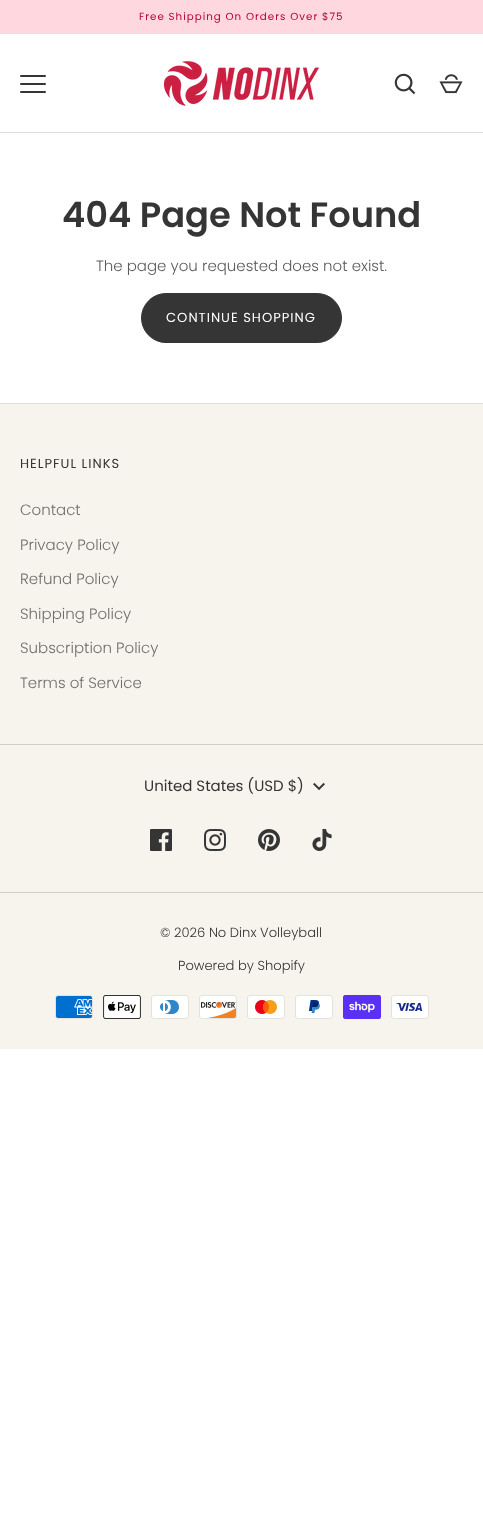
<svg xmlns="http://www.w3.org/2000/svg" width="483" height="1520" viewBox="0 0 483 1520">
  <style>
    .t1 { font: 10.3px Poppins; letter-spacing: 1px; fill: #b7012f; }
    .t2 { font: 600 35.25px Poppins; fill: #343534; }
    .t3 { font: 300 15px Poppins; fill: #5c5c5c; }
    .t4 { font: 13.1px Poppins; letter-spacing: 1px; fill: #fff; }
    .t5 { font: 13.1px Poppins; letter-spacing: 1px; fill: #343534; }
    .t6 { font: 300 15px Poppins; fill: #6e6e6c; }
    .t7 { font: 15px Poppins; fill: #343534; }
    .t8 { font: 300 13.1px Poppins; fill: #343534; }
  </style>
  <rect width="100%" height="100%" fill="#fff"/>
  <rect x="0" y="0" width="483" height="34" fill="#ffd7de"/>
  <text x="139" y="20" class="t1">Free Shipping On Orders Over $75</text>
  <rect x="20" y="75" width="26" height="2" rx="1" fill="#343534"/>
  <rect x="20" y="83" width="26" height="2" rx="1" fill="#343534"/>
  <rect x="20" y="91" width="26" height="2" rx="1" fill="#343534"/>
  <image x="164" y="61" width="155" height="45" href="images/1.png"/>
  <image x="394" y="73" width="22" height="22" href="images/2.png"/>
  <image x="439" y="74" width="24" height="20" href="images/3.png"/>
  <rect x="0" y="132" width="483" height="1" fill="#dedede"/>
  <text x="62" y="227" class="t2">404 Page Not Found</text>
  <text x="96" y="271" class="t3">The page you requested does not exist.</text>
  <rect x="141.5" y="293.5" width="200" height="49" rx="24.5" fill="#343534" stroke="#343534"/>
  <text x="166" y="322" class="t4">CONTINUE SHOPPING</text>
  <rect x="0" y="404" width="483" height="645" fill="#f6f4ed"/>
  <rect x="0" y="403" width="483" height="1" fill="#dedede"/>
  <text x="20" y="468" class="t5">HELPFUL LINKS</text>
  <text x="20" y="515" class="t6">Contact</text>
  <text x="20" y="550" class="t6">Privacy Policy</text>
  <text x="20" y="584" class="t6">Refund Policy</text>
  <text x="20" y="619" class="t6">Shipping Policy</text>
  <text x="20" y="653" class="t6">Subscription Policy</text>
  <text x="20" y="688" class="t6">Terms of Service</text>
  <rect x="0" y="744" width="483" height="1" fill="#cfcec8"/>
  <text x="144" y="791" class="t7">United States (USD $)</text>
  <image x="313" y="782" width="12" height="9" href="images/4.png"/>
  <image x="150" y="829" width="22" height="22" href="images/5.png"/>
  <image x="204" y="829" width="22" height="22" href="images/6.png"/>
  <image x="258" y="829" width="22" height="22" href="images/7.png"/>
  <image x="312" y="829" width="20" height="22" href="images/8.png"/>
  <rect x="0" y="892" width="483" height="1" fill="#cfcec8"/>
  <text x="160" y="937" class="t8">© 2026 No Dinx Volleyball</text>
  <text x="178" y="970" class="t8">Powered by Shopify</text>
  <image x="55" y="995" width="38" height="24" href="images/9.png"/>
  <image x="103" y="995" width="38" height="24" href="images/10.png"/>
  <image x="151" y="995" width="38" height="24" href="images/11.png"/>
  <image x="199" y="995" width="38" height="24" href="images/12.png"/>
  <image x="247" y="995" width="38" height="24" href="images/13.png"/>
  <image x="295" y="995" width="38" height="24" href="images/14.png"/>
  <image x="343" y="995" width="38" height="24" href="images/15.png"/>
  <image x="391" y="995" width="38" height="24" href="images/16.png"/>
</svg>
